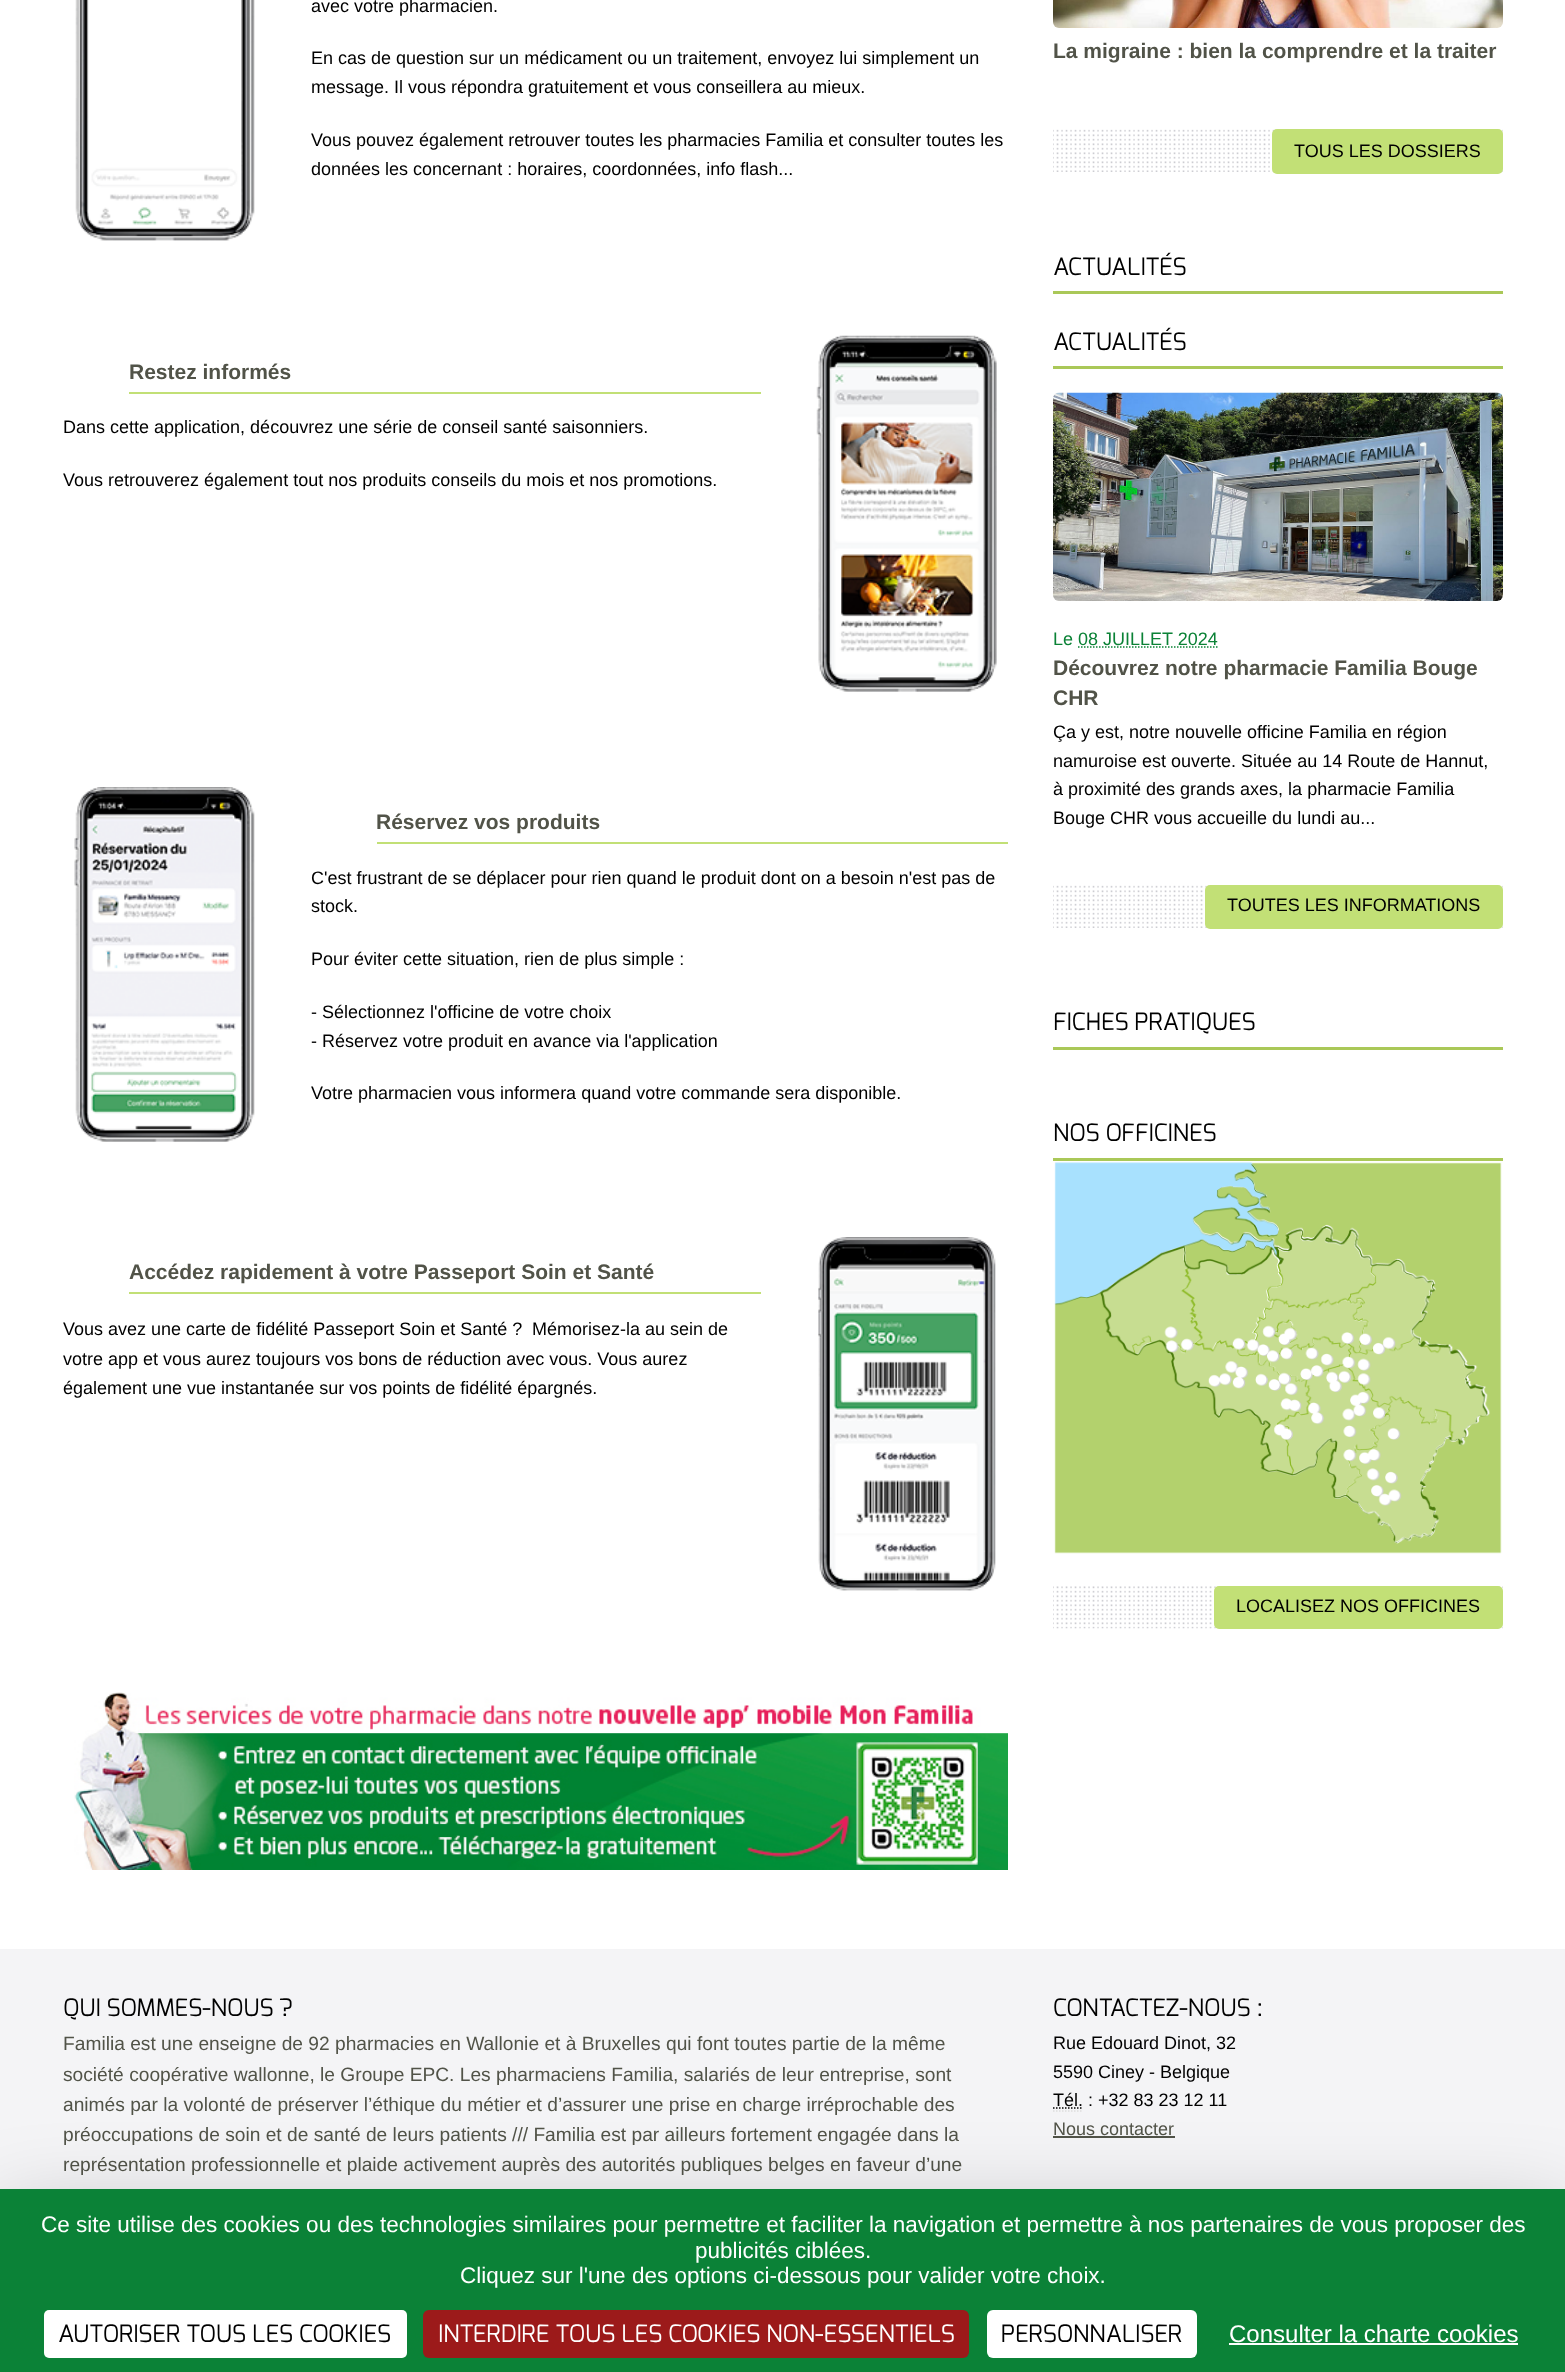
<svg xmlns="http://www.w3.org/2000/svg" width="1565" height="2372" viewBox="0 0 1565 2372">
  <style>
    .t1 { font: 18px Liberation Sans; fill: #000; }
    .t2 { font: bold 21px Liberation Sans; fill: #515348; }
    .t3 { font: 24px Exo; fill: #000; }
    .t4 { font: 18px Liberation Sans; fill: #0b8236; }
    .t5 { font: 19.2px Liberation Sans; fill: #515348; }
    .t6 { font: 18px Liberation Sans; fill: #515348; }
    .t7 { font: 22.5px Liberation Sans; fill: #fff; }
    .t8 { font: 24px Exo; fill: #fff; }
    .t9 { font: 24px Liberation Sans; fill: #fff; }
  </style>
  <rect width="100%" height="100%" fill="#f4f4f6"/>
  <rect x="0" y="0" width="1565" height="1949" fill="#fff"/>
  <image x="75" y="0" width="180" height="241" href="images/1.png"/>
  <text x="311" y="12" class="t1">avec votre pharmacien.</text>
  <text x="311" y="64" class="t1">En cas de question sur un médicament ou un traitement, envoyez lui simplement un</text>
  <text x="311" y="93" class="t1">message. Il vous répondra gratuitement et vous conseillera au mieux.</text>
  <text x="311" y="146" class="t1">Vous pouvez également retrouver toutes les pharmacies Familia et consulter toutes les</text>
  <text x="311" y="175" class="t1">données les concernant : horaires, coordonnées, info flash...</text>
  <rect x="129" y="392" width="632" height="2" fill="#c2e076"/>
  <text x="129" y="379" class="t2">Restez informés</text>
  <text x="63" y="433" class="t1">Dans cette application, découvrez une série de conseil santé saisonniers.</text>
  <text x="63" y="486" class="t1">Vous retrouverez également tout nos produits conseils du mois et nos promotions.</text>
  <image x="816" y="335" width="181" height="357" href="images/2.png"/>
  <image x="74" y="787" width="181" height="355" href="images/3.png"/>
  <rect x="377" y="842" width="631" height="2" fill="#c2e076"/>
  <text x="376" y="829" class="t2">Réservez vos produits</text>
  <text x="311" y="884" class="t1">C'est frustrant de se déplacer pour rien quand le produit dont on a besoin n'est pas de</text>
  <text x="311" y="912" class="t1">stock.</text>
  <text x="311" y="965" class="t1">Pour éviter cette situation, rien de plus simple :</text>
  <text x="311" y="1018" class="t1">- Sélectionnez l'officine de votre choix</text>
  <text x="311" y="1047" class="t1">- Réservez votre produit en avance via l'application</text>
  <text x="311" y="1099" class="t1">Votre pharmacien vous informera quand votre commande sera disponible.</text>
  <rect x="129" y="1292" width="632" height="2" fill="#c2e076"/>
  <text x="129" y="1279" class="t2">Accédez rapidement à votre Passeport Soin et Santé</text>
  <text x="63" y="1335" class="t1">Vous avez une carte de fidélité Passeport Soin et Santé ?</text>
  <text x="532" y="1335" class="t1">Mémorisez-la au sein de</text>
  <text x="63" y="1365" class="t1">votre app et vous aurez toujours vos bons de réduction avec vous. Vous aurez</text>
  <text x="63" y="1394" class="t1">également une vue instantanée sur vos points de fidélité épargnés.</text>
  <image x="818" y="1237" width="178" height="354" href="images/4.png"/>
  <image x="74" y="1692" width="934" height="178" href="images/5.png"/>
  <image x="1053" y="0" width="450" height="28" href="images/6.png"/>
  <text x="1053" y="58" class="t2">La migraine : bien la comprendre et la traiter</text>
  <image x="1053" y="129" width="450" height="43" href="images/7.png"/>
  <rect x="1272" y="129" width="231" height="45" rx="5" fill="#c2e076"/>
  <text x="1294" y="157" class="t1">TOUS LES DOSSIERS</text>
  <rect x="1053" y="291" width="450" height="3" fill="#aac858"/>
  <text x="1053" y="275" class="t3">ACTUALITÉS</text>
  <rect x="1053" y="366" width="450" height="3" fill="#aac858"/>
  <text x="1053" y="350" class="t3">ACTUALITÉS</text>
  <image x="1053" y="392" width="450" height="209" href="images/8.png"/>
  <text x="1053" y="645" class="t4">Le 08 JUILLET 2024</text>
  <path d="M1078 647H1218" fill="none" stroke="#0b8236" stroke-width="1.5" stroke-dasharray="1.5 1.5"/>
  <text x="1053" y="675" class="t2">Découvrez notre pharmacie Familia Bouge</text>
  <text x="1053" y="705" class="t2">CHR</text>
  <text x="1053" y="738" class="t1">Ça y est, notre nouvelle officine Familia en région</text>
  <text x="1053" y="767" class="t1">namuroise est ouverte. Située au 14 Route de Hannut,</text>
  <text x="1053" y="795" class="t1">à proximité des grands axes, la pharmacie Familia</text>
  <text x="1053" y="824" class="t1">Bouge CHR vous accueille du lundi au...</text>
  <image x="1053" y="885" width="450" height="43" href="images/7.png"/>
  <rect x="1205" y="885" width="298" height="44" rx="5" fill="#c2e076"/>
  <text x="1227" y="911" class="t1">TOUTES LES INFORMATIONS</text>
  <rect x="1053" y="1047" width="450" height="3" fill="#aac858"/>
  <text x="1053" y="1030" class="t3">FICHES PRATIQUES</text>
  <rect x="1053" y="1158" width="450" height="3" fill="#aac858"/>
  <text x="1053" y="1141" class="t3">NOS OFFICINES</text>
  <image x="1054" y="1162" width="448" height="392" href="images/9.png"/>
  <image x="1053" y="1586" width="450" height="43" href="images/10.png"/>
  <rect x="1214" y="1586" width="289" height="43" rx="5" fill="#c2e076"/>
  <text x="1236" y="1612" class="t1">LOCALISEZ NOS OFFICINES</text>
  <text x="63" y="2016" class="t3">QUI SOMMES-NOUS ?</text>
  <text x="63" y="2050" class="t5">Familia est une enseigne de 92 pharmacies en Wallonie et à Bruxelles qui font toutes partie de la même</text>
  <text x="63" y="2081" class="t5">société coopérative wallonne, le Groupe EPC. Les pharmaciens Familia, salariés de leur entreprise, sont</text>
  <text x="63" y="2111" class="t5">animés par la volonté de préserver l’éthique du métier et d’assurer une prise en charge irréprochable des</text>
  <text x="63" y="2141" class="t5">préoccupations de soin et de santé de leurs patients /// Familia est par ailleurs fortement engagée dans la</text>
  <text x="63" y="2171" class="t5">représentation professionnelle et plaide activement auprès des autorités publiques belges en faveur d’une</text>
  <text x="1053" y="2016" class="t3">CONTACTEZ-NOUS :</text>
  <text x="1053" y="2049" class="t1">Rue Edouard Dinot, 32</text>
  <text x="1053" y="2078" class="t1">5590 Ciney - Belgique</text>
  <text x="1053" y="2106" class="t1">Tél. : +32 83 23 12 11</text>
  <path d="M1053 2111H1083" fill="none" stroke="#ddd" stroke-width="1.5" stroke-dasharray="1.5 1.5"/>
  <path d="M1053 2108H1083" fill="none" stroke="#000" stroke-width="1.5" stroke-dasharray="1.5 1.5"/>
  <text x="1053" y="2135" class="t6">Nous contacter</text>
  <rect x="1053" y="2136" width="122" height="2" fill="#515348"/>
  <rect x="0" y="2219" width="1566" height="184" fill="#00000040" filter="blur(45px)"/>
  <rect x="0" y="2189" width="1565" height="183" fill="#0b8237"/>
  <text x="41" y="2232" class="t7">Ce site utilise des cookies ou des technologies similaires pour permettre et faciliter la navigation et permettre à nos partenaires de vous proposer des</text>
  <text x="695" y="2258" class="t7">publicités ciblées.</text>
  <text x="460" y="2283" class="t7">Cliquez sur l'une des options ci-dessous pour valider votre choix.</text>
  <rect x="44" y="2310" width="363" height="48" rx="5" fill="#fff"/>
  <text x="58" y="2342" class="t3">AUTORISER TOUS LES COOKIES</text>
  <rect x="423" y="2310" width="546" height="48" rx="6" fill="#9c1a1a"/>
  <text x="438" y="2342" class="t8">INTERDIRE TOUS LES COOKIES NON-ESSENTIELS</text>
  <rect x="987" y="2310" width="210" height="48" rx="6" fill="#fff"/>
  <text x="1001" y="2342" class="t3">PERSONNALISER</text>
  <text x="1229" y="2342" class="t9">Consulter la charte cookies</text>
  <rect x="1229" y="2343" width="289" height="2" fill="#fff"/>
</svg>
